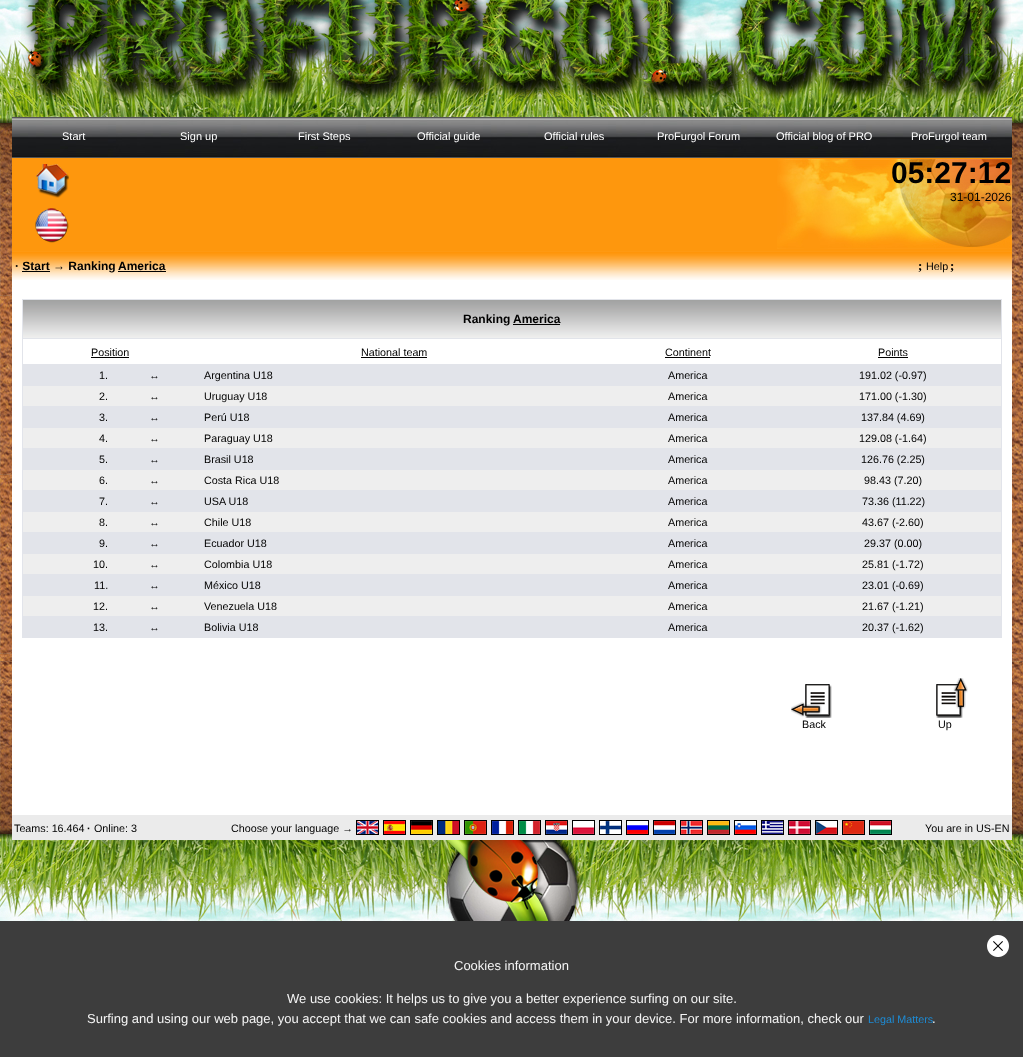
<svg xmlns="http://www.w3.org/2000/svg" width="1023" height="1057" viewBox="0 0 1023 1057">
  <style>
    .t1 { font: 11px Liberation Sans; fill: #fff; }
    .t2 { font: bold 30px Liberation Sans; fill: #000; }
    .t3 { font: 12px Liberation Sans; fill: #000; }
    .t4 { font: bold 12px Liberation Sans; fill: #000; }
    .t5 { font: bold 13px Liberation Serif; fill: #000; }
    .t6 { font: 10.75px Liberation Sans; fill: #000; }
    .t7 { font: bold 10.75px Liberation Sans; fill: #000; }
    .t8 { font: 13px Liberation Sans; fill: #f5f5f5; }
    .t9 { font: 10.75px Liberation Sans; fill: #1d8cd6; }
  </style>
  <rect width="100%" height="100%" fill="#fff"/>
  <image x="0" y="294" width="1023" height="367" href="images/1.png"/>
  <image x="0" y="0" width="1023" height="117" href="images/2.png"/>
  <image x="21" y="0" width="990" height="102" href="images/3.png"/>
  <image x="0" y="117" width="1023" height="177" href="images/4.png"/>
  <image x="0" y="661" width="1023" height="179" href="images/33.png"/>
  <rect x="12" y="280" width="1000" height="535" fill="#fff"/>
  <image x="12" y="117" width="125" height="41" href="images/5.png"/>
  <text x="62" y="140" class="t1">Start</text>
  <image x="137" y="117" width="125" height="41" href="images/5.png"/>
  <text x="180" y="140" class="t1">Sign up</text>
  <image x="262" y="117" width="125" height="41" href="images/5.png"/>
  <text x="298" y="140" class="t1">First Steps</text>
  <image x="387" y="117" width="125" height="41" href="images/5.png"/>
  <text x="417" y="140" class="t1">Official guide</text>
  <image x="512" y="117" width="125" height="41" href="images/5.png"/>
  <text x="544" y="140" class="t1">Official rules</text>
  <image x="637" y="117" width="125" height="41" href="images/5.png"/>
  <text x="657" y="140" class="t1">ProFurgol Forum</text>
  <image x="762" y="117" width="125" height="41" href="images/5.png"/>
  <text x="776" y="140" class="t1">Official blog of PRO</text>
  <image x="887" y="117" width="125" height="41" href="images/5.png"/>
  <text x="911" y="140" class="t1">ProFurgol team</text>
  <rect x="12" y="158" width="1000" height="93" fill="#fe970d"/>
  <image x="777" y="159" width="235" height="90" href="images/6.png"/>
  <image x="36" y="164" width="33" height="34" href="images/7.png"/>
  <image x="35" y="208" width="34" height="35" href="images/8.png"/>
  <text x="891" y="183" class="t2">05:27:12</text>
  <text x="950" y="201" class="t3">31-01-2026</text>
  <image x="12" y="251" width="1000" height="29" href="images/9.png"/>
  <text x="15" y="270" class="t4">· Start</text>
  <rect x="22" y="271" width="28" height="1" fill="#000"/>
  <text x="53" y="270" class="t4">→ Ranking</text>
  <text x="118" y="270" class="t4">America</text>
  <rect x="118" y="271" width="48" height="1" fill="#000"/>
  <text x="918" y="270" class="t5">;</text>
  <text x="926" y="270" class="t6">Help</text>
  <text x="950" y="270" class="t5">;</text>
  <rect x="22" y="299" width="980" height="339" fill="#e2e4ea"/>
  <image x="23" y="300" width="978" height="38" href="images/10.png"/>
  <text x="463" y="323" class="t4">Ranking</text>
  <text x="513" y="323" class="t4">America</text>
  <rect x="513" y="324" width="47" height="1" fill="#000"/>
  <rect x="23" y="339" width="978" height="25" fill="#fff"/>
  <text x="91" y="356" class="t6">Position</text>
  <rect x="91" y="357" width="38" height="1" fill="#000"/>
  <text x="361" y="356" class="t6">National team</text>
  <rect x="361" y="357" width="66" height="1" fill="#000"/>
  <text x="665" y="356" class="t6">Continent</text>
  <rect x="665" y="357" width="45" height="1" fill="#000"/>
  <text x="878" y="356" class="t6">Points</text>
  <rect x="878" y="357" width="30" height="1" fill="#000"/>
  <text x="99" y="379" class="t6">1.</text>
  <text x="149" y="379" class="t6">↔</text>
  <text x="204" y="379" class="t6">Argentina U18</text>
  <text x="668" y="379" class="t6">America</text>
  <text x="859" y="379" class="t6">191.02 (-0.97)</text>
  <rect x="23" y="386" width="978" height="20" fill="#eee"/>
  <text x="99" y="400" class="t6">2.</text>
  <text x="149" y="400" class="t6">↔</text>
  <text x="204" y="400" class="t6">Uruguay U18</text>
  <text x="668" y="400" class="t6">America</text>
  <text x="859" y="400" class="t6">171.00 (-1.30)</text>
  <text x="99" y="421" class="t6">3.</text>
  <text x="149" y="421" class="t6">↔</text>
  <text x="204" y="421" class="t6">Perú U18</text>
  <text x="668" y="421" class="t6">America</text>
  <text x="861" y="421" class="t6">137.84 (4.69)</text>
  <rect x="23" y="428" width="978" height="20" fill="#eee"/>
  <text x="99" y="442" class="t6">4.</text>
  <text x="149" y="442" class="t6">↔</text>
  <text x="204" y="442" class="t6">Paraguay U18</text>
  <text x="668" y="442" class="t6">America</text>
  <text x="859" y="442" class="t6">129.08 (-1.64)</text>
  <text x="99" y="463" class="t6">5.</text>
  <text x="149" y="463" class="t6">↔</text>
  <text x="204" y="463" class="t6">Brasil U18</text>
  <text x="668" y="463" class="t6">America</text>
  <text x="861" y="463" class="t6">126.76 (2.25)</text>
  <rect x="23" y="470" width="978" height="20" fill="#eee"/>
  <text x="99" y="484" class="t6">6.</text>
  <text x="149" y="484" class="t6">↔</text>
  <text x="204" y="484" class="t6">Costa Rica U18</text>
  <text x="668" y="484" class="t6">America</text>
  <text x="864" y="484" class="t6">98.43 (7.20)</text>
  <text x="99" y="505" class="t6">7.</text>
  <text x="149" y="505" class="t6">↔</text>
  <text x="204" y="505" class="t6">USA U18</text>
  <text x="668" y="505" class="t6">America</text>
  <text x="862" y="505" class="t6">73.36 (11.22)</text>
  <rect x="23" y="512" width="978" height="20" fill="#eee"/>
  <text x="99" y="526" class="t6">8.</text>
  <text x="149" y="526" class="t6">↔</text>
  <text x="204" y="526" class="t6">Chile U18</text>
  <text x="668" y="526" class="t6">America</text>
  <text x="862" y="526" class="t6">43.67 (-2.60)</text>
  <text x="99" y="547" class="t6">9.</text>
  <text x="149" y="547" class="t6">↔</text>
  <text x="204" y="547" class="t6">Ecuador U18</text>
  <text x="668" y="547" class="t6">America</text>
  <text x="864" y="547" class="t6">29.37 (0.00)</text>
  <rect x="23" y="554" width="978" height="20" fill="#eee"/>
  <text x="93" y="568" class="t6">10.</text>
  <text x="149" y="568" class="t6">↔</text>
  <text x="204" y="568" class="t6">Colombia U18</text>
  <text x="668" y="568" class="t6">America</text>
  <text x="862" y="568" class="t6">25.81 (-1.72)</text>
  <text x="94" y="589" class="t6">11.</text>
  <text x="149" y="589" class="t6">↔</text>
  <text x="204" y="589" class="t6">México U18</text>
  <text x="668" y="589" class="t6">America</text>
  <text x="862" y="589" class="t6">23.01 (-0.69)</text>
  <rect x="23" y="596" width="978" height="20" fill="#eee"/>
  <text x="93" y="610" class="t6">12.</text>
  <text x="149" y="610" class="t6">↔</text>
  <text x="204" y="610" class="t6">Venezuela U18</text>
  <text x="668" y="610" class="t6">America</text>
  <text x="862" y="610" class="t6">21.67 (-1.21)</text>
  <text x="93" y="631" class="t6">13.</text>
  <text x="149" y="631" class="t6">↔</text>
  <text x="204" y="631" class="t6">Bolivia U18</text>
  <text x="668" y="631" class="t6">America</text>
  <text x="862" y="631" class="t6">20.37 (-1.62)</text>
  <image x="791" y="684" width="41" height="34" href="images/11.png"/>
  <text x="802" y="728" class="t6">Back</text>
  <image x="936" y="678" width="32" height="40" href="images/12.png"/>
  <text x="938" y="728" class="t6">Up</text>
  <rect x="12" y="815" width="1000" height="25" fill="#ebebeb"/>
  <text x="14" y="832" class="t6">Teams: 16.464</text>
  <text x="87" y="832" class="t7">·</text>
  <text x="94" y="832" class="t6">Online: 3</text>
  <text x="231" y="832" class="t6">Choose your language →</text>
  <rect x="356.5" y="820.5" width="22" height="14" fill="none" stroke="#000"/>
  <image x="357" y="821" width="21" height="13" href="images/13.png"/>
  <rect x="383.5" y="820.5" width="22" height="14" fill="none" stroke="#000"/>
  <image x="384" y="821" width="21" height="13" href="images/14.png"/>
  <rect x="410.5" y="820.5" width="22" height="14" fill="none" stroke="#000"/>
  <image x="411" y="821" width="21" height="13" href="images/15.png"/>
  <rect x="437.5" y="820.5" width="22" height="14" fill="none" stroke="#000"/>
  <image x="438" y="821" width="21" height="13" href="images/16.png"/>
  <rect x="464.5" y="820.5" width="22" height="14" fill="none" stroke="#000"/>
  <image x="465" y="821" width="21" height="13" href="images/17.png"/>
  <rect x="491.5" y="820.5" width="22" height="14" fill="none" stroke="#000"/>
  <image x="492" y="821" width="21" height="13" href="images/18.png"/>
  <rect x="518.5" y="820.5" width="22" height="14" fill="none" stroke="#000"/>
  <image x="519" y="821" width="21" height="13" href="images/19.png"/>
  <rect x="545.5" y="820.5" width="22" height="14" fill="none" stroke="#000"/>
  <image x="546" y="821" width="21" height="13" href="images/20.png"/>
  <rect x="572.5" y="820.5" width="22" height="14" fill="none" stroke="#000"/>
  <image x="573" y="821" width="21" height="13" href="images/21.png"/>
  <rect x="599.5" y="820.5" width="22" height="14" fill="none" stroke="#000"/>
  <image x="600" y="821" width="21" height="13" href="images/22.png"/>
  <rect x="626.5" y="820.5" width="22" height="14" fill="none" stroke="#000"/>
  <image x="627" y="821" width="21" height="13" href="images/23.png"/>
  <rect x="653.5" y="820.5" width="22" height="14" fill="none" stroke="#000"/>
  <image x="654" y="821" width="21" height="13" href="images/24.png"/>
  <rect x="680.5" y="820.5" width="22" height="14" fill="none" stroke="#000"/>
  <image x="681" y="821" width="21" height="13" href="images/25.png"/>
  <rect x="707.5" y="820.5" width="22" height="14" fill="none" stroke="#000"/>
  <image x="708" y="821" width="21" height="13" href="images/26.png"/>
  <rect x="734.5" y="820.5" width="22" height="14" fill="none" stroke="#000"/>
  <image x="735" y="821" width="21" height="13" href="images/27.png"/>
  <rect x="761.5" y="820.5" width="22" height="14" fill="none" stroke="#000"/>
  <image x="762" y="821" width="21" height="13" href="images/28.png"/>
  <rect x="788.5" y="820.5" width="22" height="14" fill="none" stroke="#000"/>
  <image x="789" y="821" width="21" height="13" href="images/29.png"/>
  <rect x="815.5" y="820.5" width="22" height="14" fill="none" stroke="#000"/>
  <image x="816" y="821" width="21" height="13" href="images/30.png"/>
  <rect x="842.5" y="820.5" width="22" height="14" fill="none" stroke="#000"/>
  <image x="843" y="821" width="21" height="13" href="images/31.png"/>
  <rect x="869.5" y="820.5" width="22" height="14" fill="none" stroke="#000"/>
  <image x="870" y="821" width="21" height="13" href="images/32.png"/>
  <text x="925" y="832" class="t6">You are in US-EN</text>
  <image x="0" y="840" width="1023" height="81" href="images/34.png"/>
  <image x="444" y="840" width="138" height="81" href="images/35.png"/>
  <rect x="0" y="921" width="1023" height="136" fill="#3d3d3d"/>
  <image x="987" y="935" width="22" height="22" href="images/36.png"/>
  <text x="454" y="970" class="t8">Cookies information</text>
  <text x="287" y="1003" class="t8">We use cookies: It helps us to give you a better experience surfing on our site.</text>
  <text x="87" y="1023" class="t8">Surfing and using our web page, you accept that we can safe cookies and access them in your device. For more information, check our</text>
  <text x="868" y="1023" class="t9">Legal Matters</text>
  <text x="932" y="1023" class="t8">.</text>
</svg>
